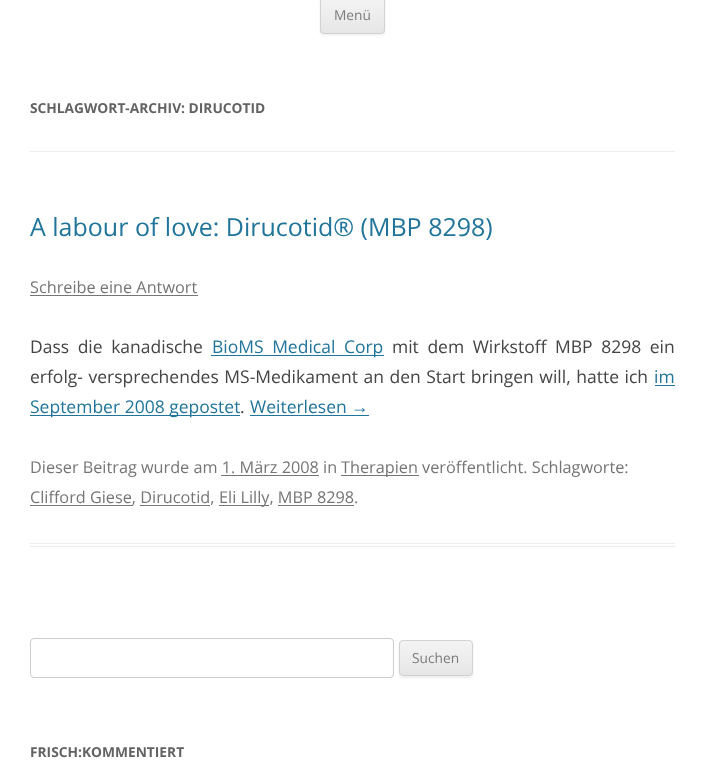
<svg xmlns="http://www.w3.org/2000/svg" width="705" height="766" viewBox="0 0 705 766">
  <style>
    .t1 { font: 13.75px Open Sans; fill: #7c7c7c; }
    .t2 { font: bold 13.75px Open Sans; fill: #636363; }
    .t3 { font: 25px Open Sans; fill: #21759b; }
    .t4 { font: 16.25px Open Sans; fill: #757575; }
    .t5 { font: 17.5px Open Sans; fill: #444; }
    .t6 { font: 17.5px Open Sans; fill: #21759b; }
    .t7 { font: 17.5px Liberation Sans; fill: #21759b; }
  </style>
  <defs>
    <clipPath id="clip1"><rect x="320" y="-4" width="65" height="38" rx="4"/></clipPath>
    <linearGradient id="g1" gradientUnits="userSpaceOnUse" x1="353" y1="-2.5" x2="353" y2="33"><stop offset="0" stop-color="#f4f4f4"/><stop offset="1" stop-color="#e6e6e6"/></linearGradient>
    <clipPath id="clip2"><rect x="399" y="640" width="74" height="36" rx="4"/></clipPath>
    <linearGradient id="g2" gradientUnits="userSpaceOnUse" x1="436" y1="641" x2="436" y2="675"><stop offset="0" stop-color="#f4f4f4"/><stop offset="1" stop-color="#e6e6e6"/></linearGradient>
  </defs>
  <rect width="100%" height="100%" fill="#fff"/>
  <rect x="320" y="-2" width="65" height="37" rx="4" fill="#4040401a" filter="blur(1px)"/>
  <g clip-path="url(#clip1)">
    <rect x="320" y="0" width="65" height="33" fill="url(#g1)"/>
  </g>
  <rect x="320.5" y="-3.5" width="64" height="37" rx="3.5" fill="none" stroke="#d2d2d2"/>
  <text x="334" y="20" class="t1">Menü</text>
  <rect x="30" y="151" width="645" height="1" fill="#ededed"/>
  <text x="30" y="113" class="t2">SCHLAGWORT-ARCHIV: DIRUCOTID</text>
  <rect x="30" y="543" width="645" height="1" fill="#ededed"/>
  <rect x="30" y="546" width="645" height="1" fill="#ededed"/>
  <text x="30" y="236" class="t3">A labour of love: Dirucotid® (MBP 8298)</text>
  <text x="30" y="293" class="t4">Schreibe eine Antwort</text>
  <rect x="30" y="295" width="168" height="1" fill="#757575"/>
  <text x="30" y="353" word-spacing="4" class="t5">Dass die kanadische</text>
  <rect x="211" y="355" width="173" height="1" fill="#21759b"/>
  <text x="212" y="353" word-spacing="4" class="t6">BioMS Medical Corp</text>
  <text x="392" y="353" word-spacing="4" class="t5">mit dem Wirkstoff MBP 8298 ein</text>
  <text x="30" y="383" word-spacing="1" class="t5">erfolg- versprechendes MS-Medikament an den Start bringen will, hatte ich</text>
  <text x="654" y="383" class="t6">im</text>
  <rect x="655" y="385" width="20" height="1" fill="#21759b"/>
  <rect x="30" y="415" width="210" height="1" fill="#21759b"/>
  <text x="30" y="413" class="t6">September 2008 gepostet</text>
  <text x="240" y="413" class="t5">.</text>
  <text x="250" y="413" class="t6">Weiterlesen</text>
  <text x="351" y="413" class="t7">→</text>
  <rect x="250" y="415" width="119" height="1" fill="#21759b"/>
  <text x="30" y="473" class="t4">Dieser Beitrag wurde am 1. März 2008 in</text>
  <rect x="341" y="475" width="78" height="1" fill="#757575"/>
  <text x="341" y="473" class="t4">Therapien veröffentlicht. Schlagworte:</text>
  <rect x="221" y="475" width="98" height="1" fill="#757575"/>
  <rect x="30" y="505" width="103" height="1" fill="#757575"/>
  <text x="30" y="503" class="t4">Clifford Giese, Dirucotid,</text>
  <rect x="219" y="505" width="50" height="1" fill="#757575"/>
  <text x="219" y="503" class="t4">Eli Lilly, MBP 8298.</text>
  <rect x="140" y="505" width="70" height="1" fill="#757575"/>
  <rect x="278" y="505" width="76" height="1" fill="#757575"/>
  <rect x="30.5" y="638.5" width="363" height="39" rx="3.5" fill="none" stroke="#ccc"/>
  <rect x="399" y="641" width="74" height="37" rx="4" fill="#4040401a" filter="blur(1px)"/>
  <g clip-path="url(#clip2)">
    <rect x="399" y="641" width="74" height="34" fill="url(#g2)"/>
  </g>
  <rect x="399.5" y="640.5" width="73" height="35" rx="3.5" fill="none" stroke="#d2d2d2"/>
  <text x="412" y="663" class="t1">Suchen</text>
  <text x="30" y="757" class="t2">FRISCH:KOMMENTIERT</text>
</svg>
